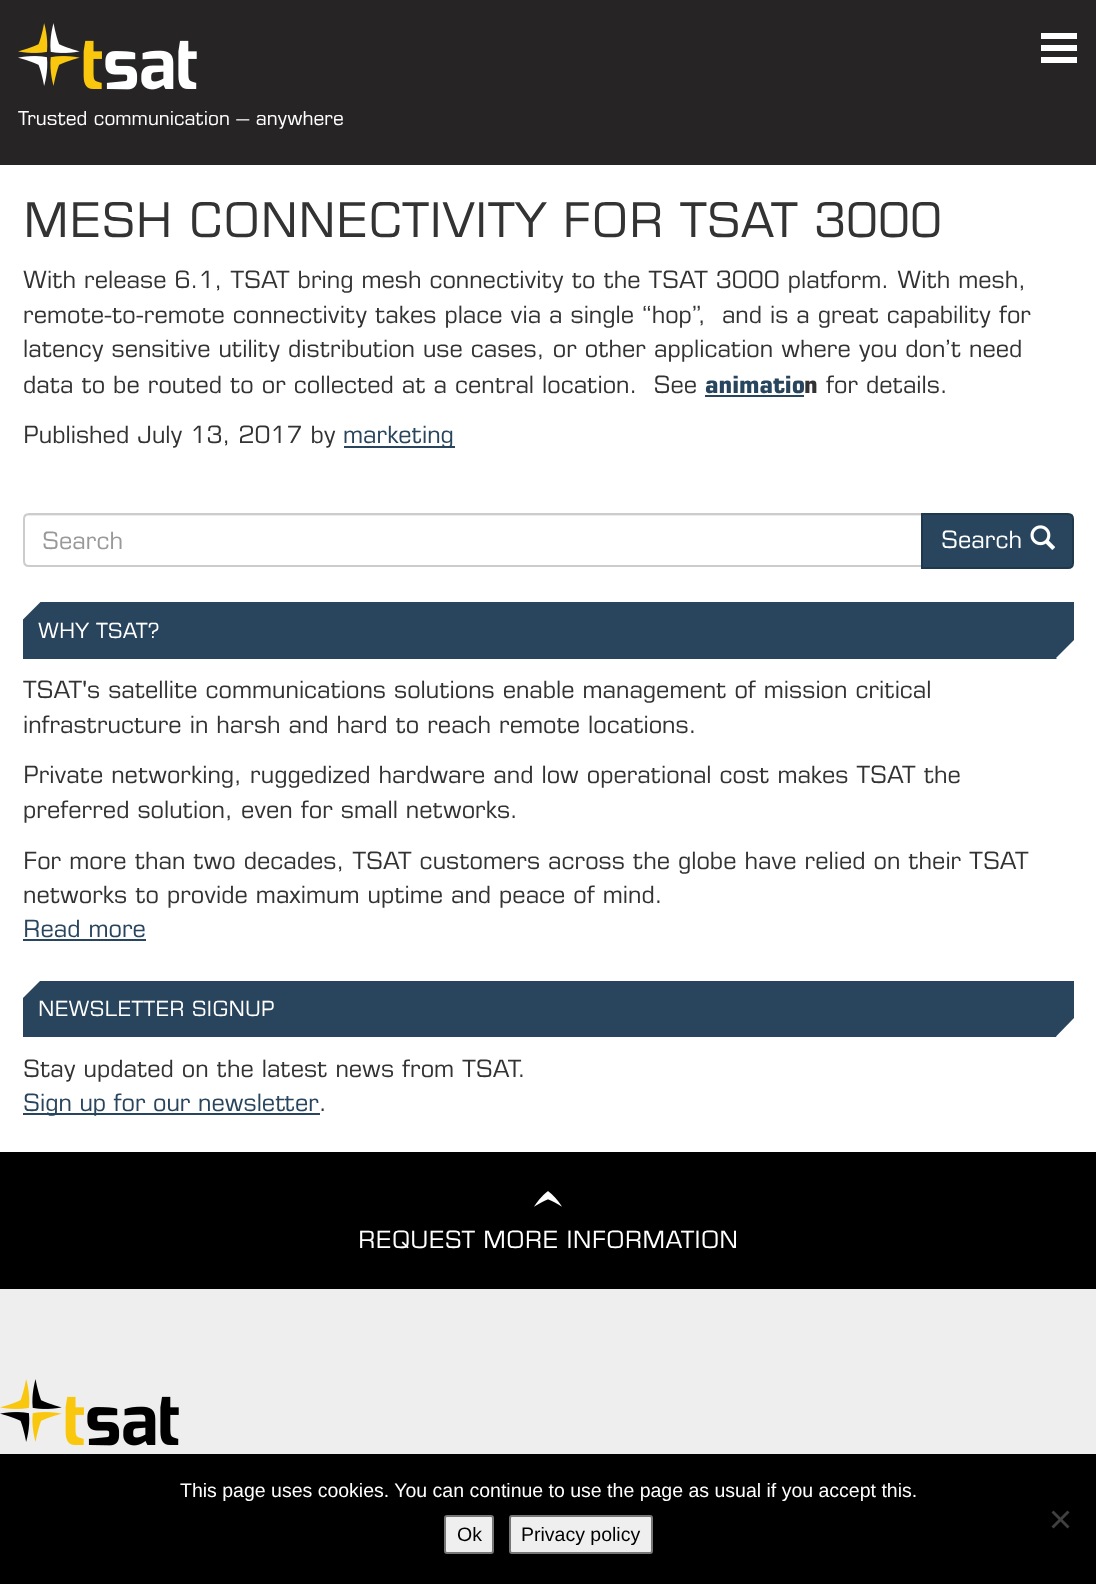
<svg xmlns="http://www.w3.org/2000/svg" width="1096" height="1584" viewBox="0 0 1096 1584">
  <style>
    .t1 { font: 500 19.5px 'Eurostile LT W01'; fill: #fff; }
    .t2 { font: 500 48px 'Eurostile LT W01'; fill: #333; }
    .t3 { font: 500 24px 'Eurostile LT W01'; fill: #333; }
    .t4 { font: bold 24px 'Eurostile LT W01'; fill: #28455d; }
    .t5 { font: bold 24px 'Eurostile LT W01'; fill: #333; }
    .t6 { font: 500 24px 'Eurostile LT W01'; fill: #28455d; }
    .t7 { font: 500 24px 'Eurostile LT W01'; fill: #999; }
    .t8 { font: 500 24px 'Eurostile LT W01'; fill: #fff; }
    .t9 { font: 500 21px 'Eurostile LT W01'; fill: #fff; }
    .t10 { font: 19.5px Liberation Sans; fill: #fff; }
    .t11 { font: 19.5px Liberation Sans; fill: #000; }
  </style>
  <defs>
    <clipPath id="clip1"><rect x="23" y="602" width="1051" height="57"/></clipPath>
    <clipPath id="clip2"><rect x="23" y="981" width="1051" height="56"/></clipPath>
  </defs>
  <rect width="100%" height="100%" fill="#eee"/>
  <rect x="0" y="0" width="1096" height="165" fill="#272425"/>
  <rect x="1041" y="33" width="36" height="6" fill="#fff"/>
  <rect x="1041" y="45" width="36" height="6" fill="#fff"/>
  <rect x="1041" y="57" width="36" height="6" fill="#fff"/>
  <image x="18" y="23" width="179" height="67" href="images/1.png"/>
  <text x="18" y="125" class="t1">Trusted communication – anywhere</text>
  <rect x="0" y="165" width="1096" height="987" fill="#fff"/>
  <text x="23" y="237" class="t2">MESH CONNECTIVITY FOR TSAT 3000</text>
  <text x="23" y="288" class="t3">With release 6.1, TSAT bring mesh connectivity to the TSAT 3000 platform. With mesh,</text>
  <text x="23" y="323" class="t3" xml:space="preserve">remote-to-remote connectivity takes place via a single “hop”,  and is a great capability for</text>
  <text x="23" y="357" class="t3">latency sensitive utility distribution use cases, or other application where you don’t need</text>
  <text x="23" y="393" class="t3" xml:space="preserve">data to be routed to or collected at a central location.  See</text>
  <text x="705" y="393" class="t4">animatio</text>
  <text x="804" y="393" class="t5">n</text>
  <rect x="705" y="395" width="99" height="2" fill="#28455d"/>
  <text x="826" y="393" class="t3">for details.</text>
  <text x="23" y="443" class="t3">Published July 13, 2017 by</text>
  <rect x="344" y="446" width="111" height="2" fill="#28455d"/>
  <text x="343" y="443" class="t6">marketing</text>
  <path d="M28 516H921V515H29C26 515 24 517 24 520C24 518 26 516 28 516Z" fill="#ececec"/>
  <path d="M29 514H922V566H29C26 566 24 564 24 561V519C24 516 26 514 29 514Z" fill="none" stroke="#ccc" stroke-width="2"/>
  <text x="42" y="549" class="t7">Search</text>
  <path d="M922 514H1068C1071 514 1073 516 1073 519V563C1073 566 1071 568 1068 568H922Z" fill="#28455d" stroke="#20384b" stroke-width="2"/>
  <text x="941" y="548" class="t8">Search</text>
  <image x="1030" y="525" width="26" height="25" href="images/2.png"/>
  <rect x="23" y="602" width="1051" height="57" fill="#28455d"/>
  <g clip-path="url(#clip1)">
    <path d="M4.5 602L22.5 584L40.5 602L22.5 620Z" fill="#fff"/>
  </g>
  <text x="38" y="638" class="t9">WHY TSAT?</text>
  <g clip-path="url(#clip1)">
    <path d="M1056 658L1074 640L1092 658L1074 676Z" fill="#fff"/>
  </g>
  <text x="23" y="698" class="t3">TSAT's satellite communications solutions enable management of mission critical</text>
  <text x="23" y="733" class="t3">infrastructure in harsh and hard to reach remote locations.</text>
  <text x="23" y="783" class="t3">Private networking, ruggedized hardware and low operational cost makes TSAT the</text>
  <text x="23" y="818" class="t3">preferred solution, even for small networks.</text>
  <text x="23" y="869" class="t3">For more than two decades, TSAT customers across the globe have relied on their TSAT</text>
  <text x="23" y="903" class="t3">networks to provide maximum uptime and peace of mind.</text>
  <text x="23" y="937" class="t6">Read more</text>
  <rect x="23" y="939" width="123" height="2" fill="#28455d"/>
  <rect x="23" y="981" width="1051" height="56" fill="#28455d"/>
  <g clip-path="url(#clip2)">
    <path d="M4.5 980.5L22.5 962.5L40.5 980.5L22.5 998.5Z" fill="#fff"/>
  </g>
  <text x="38" y="1016" class="t9">NEWSLETTER SIGNUP</text>
  <g clip-path="url(#clip2)">
    <path d="M1056 1036.5L1074 1018L1092 1036.5L1074 1054.5Z" fill="#fff"/>
  </g>
  <text x="23" y="1077" class="t3">Stay updated on the latest news from TSAT.</text>
  <rect x="23" y="1113" width="297" height="2" fill="#28455d"/>
  <text x="23" y="1111" word-spacing="-0.5" class="t6">Sign up for our newsletter</text>
  <text x="319" y="1111" class="t3">.</text>
  <rect x="0" y="1152" width="1096" height="137" fill="#000"/>
  <image x="534" y="1191" width="28" height="16" href="images/3.png"/>
  <text x="358" y="1248" class="t8">REQUEST MORE INFORMATION</text>
  <image x="0" y="1379" width="179" height="67" href="images/4.png"/>
  <rect x="0" y="1454" width="1096" height="130" fill="#000"/>
  <text x="180" y="1497" class="t10">This page uses cookies. You can continue to use the page as usual if you accept this.</text>
  <path d="M1067.5 1510.5L1069.5 1512.5L1053.5 1528.5L1051.5 1526.5Z" fill="#404040"/>
  <path d="M1051.5 1512.5L1053.5 1510.5L1069.5 1526.5L1067.5 1528.5Z" fill="#404040"/>
  <rect x="445" y="1516" width="48" height="37" rx="2" fill="#efefef" stroke="#767676" stroke-width="2"/>
  <text x="457" y="1541" class="t11">Ok</text>
  <rect x="510" y="1516" width="142" height="37" rx="2" fill="#efefef" stroke="#767676" stroke-width="2"/>
  <text x="521" y="1541" class="t11">Privacy policy</text>
</svg>
